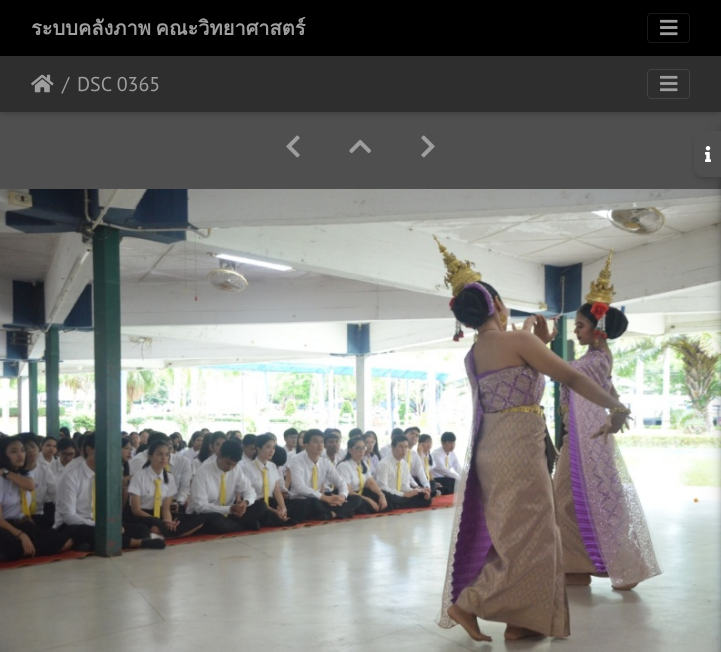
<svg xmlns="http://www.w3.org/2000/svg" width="721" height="652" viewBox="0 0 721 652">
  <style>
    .t1 { font: bold 20px Loma; fill: #9e9e9e; }
    .t2 { font: 20px PT Sans; fill: #9e9e9e; }
  </style>
  <rect width="100%" height="100%" fill="#4f4f4f"/>
  <rect x="1" y="60" width="719" height="54" fill="#00000033" filter="blur(2.5px)"/>
  <rect x="0" y="0" width="721" height="56" fill="#000"/>
  <text x="31" y="35" word-spacing="-2" class="t1">ระบบคลังภาพ คณะวิทยาศาสตร์</text>
  <rect x="647.5" y="13.5" width="42" height="29" rx="3.5" fill="none" stroke="#1a1a1a"/>
  <image x="660" y="19" width="18" height="17" href="images/1.png"/>
  <image x="0" y="189" width="721" height="463" href="images/8.png"/>
  <rect x="721" y="122" width="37" height="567" rx="10" fill="#0000001f" filter="blur(9px)"/>
  <rect x="721" y="127" width="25" height="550" rx="10" fill="#00000024" filter="blur(5px)"/>
  <rect x="0" y="56" width="721" height="56" fill="#2e2e2e"/>
  <image x="31" y="74" width="23" height="19" href="images/2.png"/>
  <text x="62" y="91" class="t2">/</text>
  <text x="77" y="91" class="t2">DSC 0365</text>
  <rect x="647.5" y="69.5" width="42" height="29" rx="3.5" fill="none" stroke="#434343"/>
  <image x="660" y="75" width="18" height="17" href="images/3.png"/>
  <image x="286" y="135" width="14" height="23" href="images/4.png"/>
  <image x="349" y="139" width="22" height="14" href="images/5.png"/>
  <image x="421" y="135" width="14" height="23" href="images/6.png"/>
  <rect x="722" y="125" width="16" height="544" rx="9" fill="#00000033" filter="blur(2.5px)"/>
  <rect x="695" y="135" width="25" height="44" rx="9" fill="#00000033" filter="blur(2.5px)"/>
  <path d="M704 131H721V177H704C698.5 177 694 172.5 694 167V141C694 135.5 698.5 131 704 131Z" fill="#4f4f4f"/>
  <path d="M704 131H721V177H704C698 177 694 173 694 167V141C694 135 698 131 704 131ZM704 132H721V176H704C699 176 695 172 695 167V141C695 136 699 132 704 132Z" fill="#4f4f4f" fill-rule="evenodd"/>
  <image x="705" y="146" width="6" height="16" href="images/7.png"/>
</svg>
